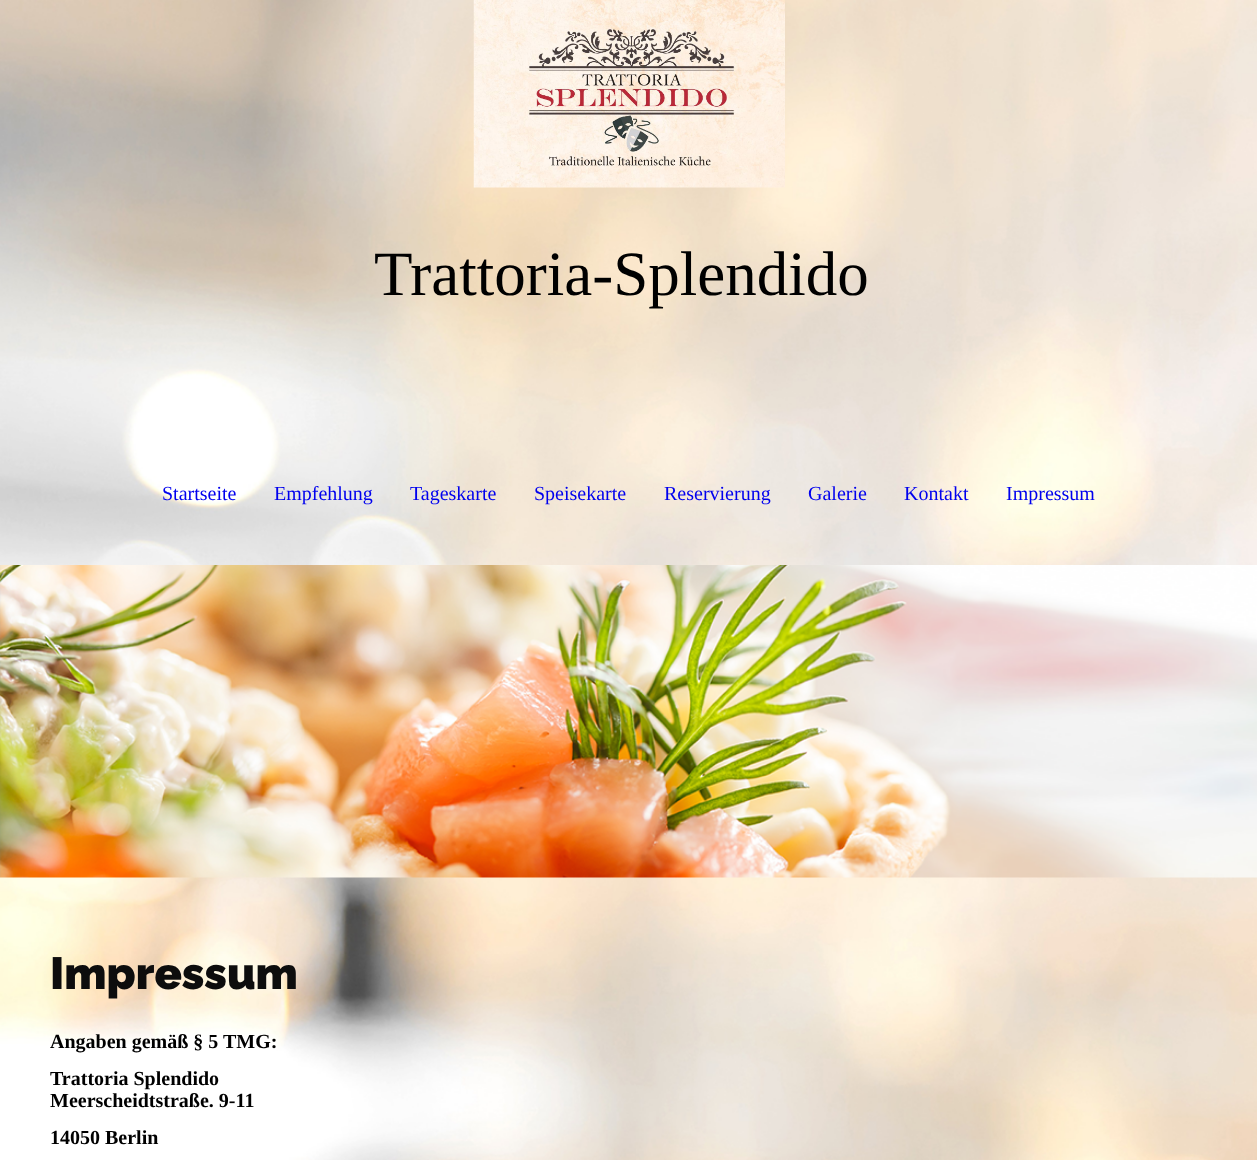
<svg xmlns="http://www.w3.org/2000/svg" width="1257" height="1160" viewBox="0 0 1257 1160">
  <style>
    .t1 { font: 63px Liberation Serif; fill: #000; }
    .t2 { font: 20px Liberation Serif; fill: #00e; }
    .t3 { font: 900 45px Raleway; fill: #0d0d0d; }
    .t4 { font: bold 20px Liberation Serif; fill: #000; }
  </style>
  <rect width="100%" height="100%" fill="#fff"/>
  <image x="0" y="0" width="1257" height="1160" href="images/1.png"/>
  <image x="473" y="0" width="312" height="188" href="images/2.png"/>
  <text x="374" y="295" class="t1">Trattoria-Splendido</text>
  <text x="162" y="500" class="t2">Startseite</text>
  <text x="274" y="500" class="t2">Empfehlung</text>
  <text x="410" y="500" class="t2">Tageskarte</text>
  <text x="534" y="500" class="t2">Speisekarte</text>
  <text x="664" y="500" class="t2">Reservierung</text>
  <text x="808" y="500" class="t2">Galerie</text>
  <text x="904" y="500" class="t2">Kontakt</text>
  <text x="1006" y="500" class="t2">Impressum</text>
  <image x="0" y="565" width="1257" height="313" href="images/3.png"/>
  <text x="50" y="989" class="t3">Impressum</text>
  <text x="50" y="1048" class="t4">Angaben gemäß § 5 TMG:</text>
  <text x="50" y="1085" class="t4">Trattoria Splendido</text>
  <text x="50" y="1107" class="t4">Meerscheidtstraße. 9-11</text>
  <text x="50" y="1144" class="t4">14050 Berlin</text>
</svg>
